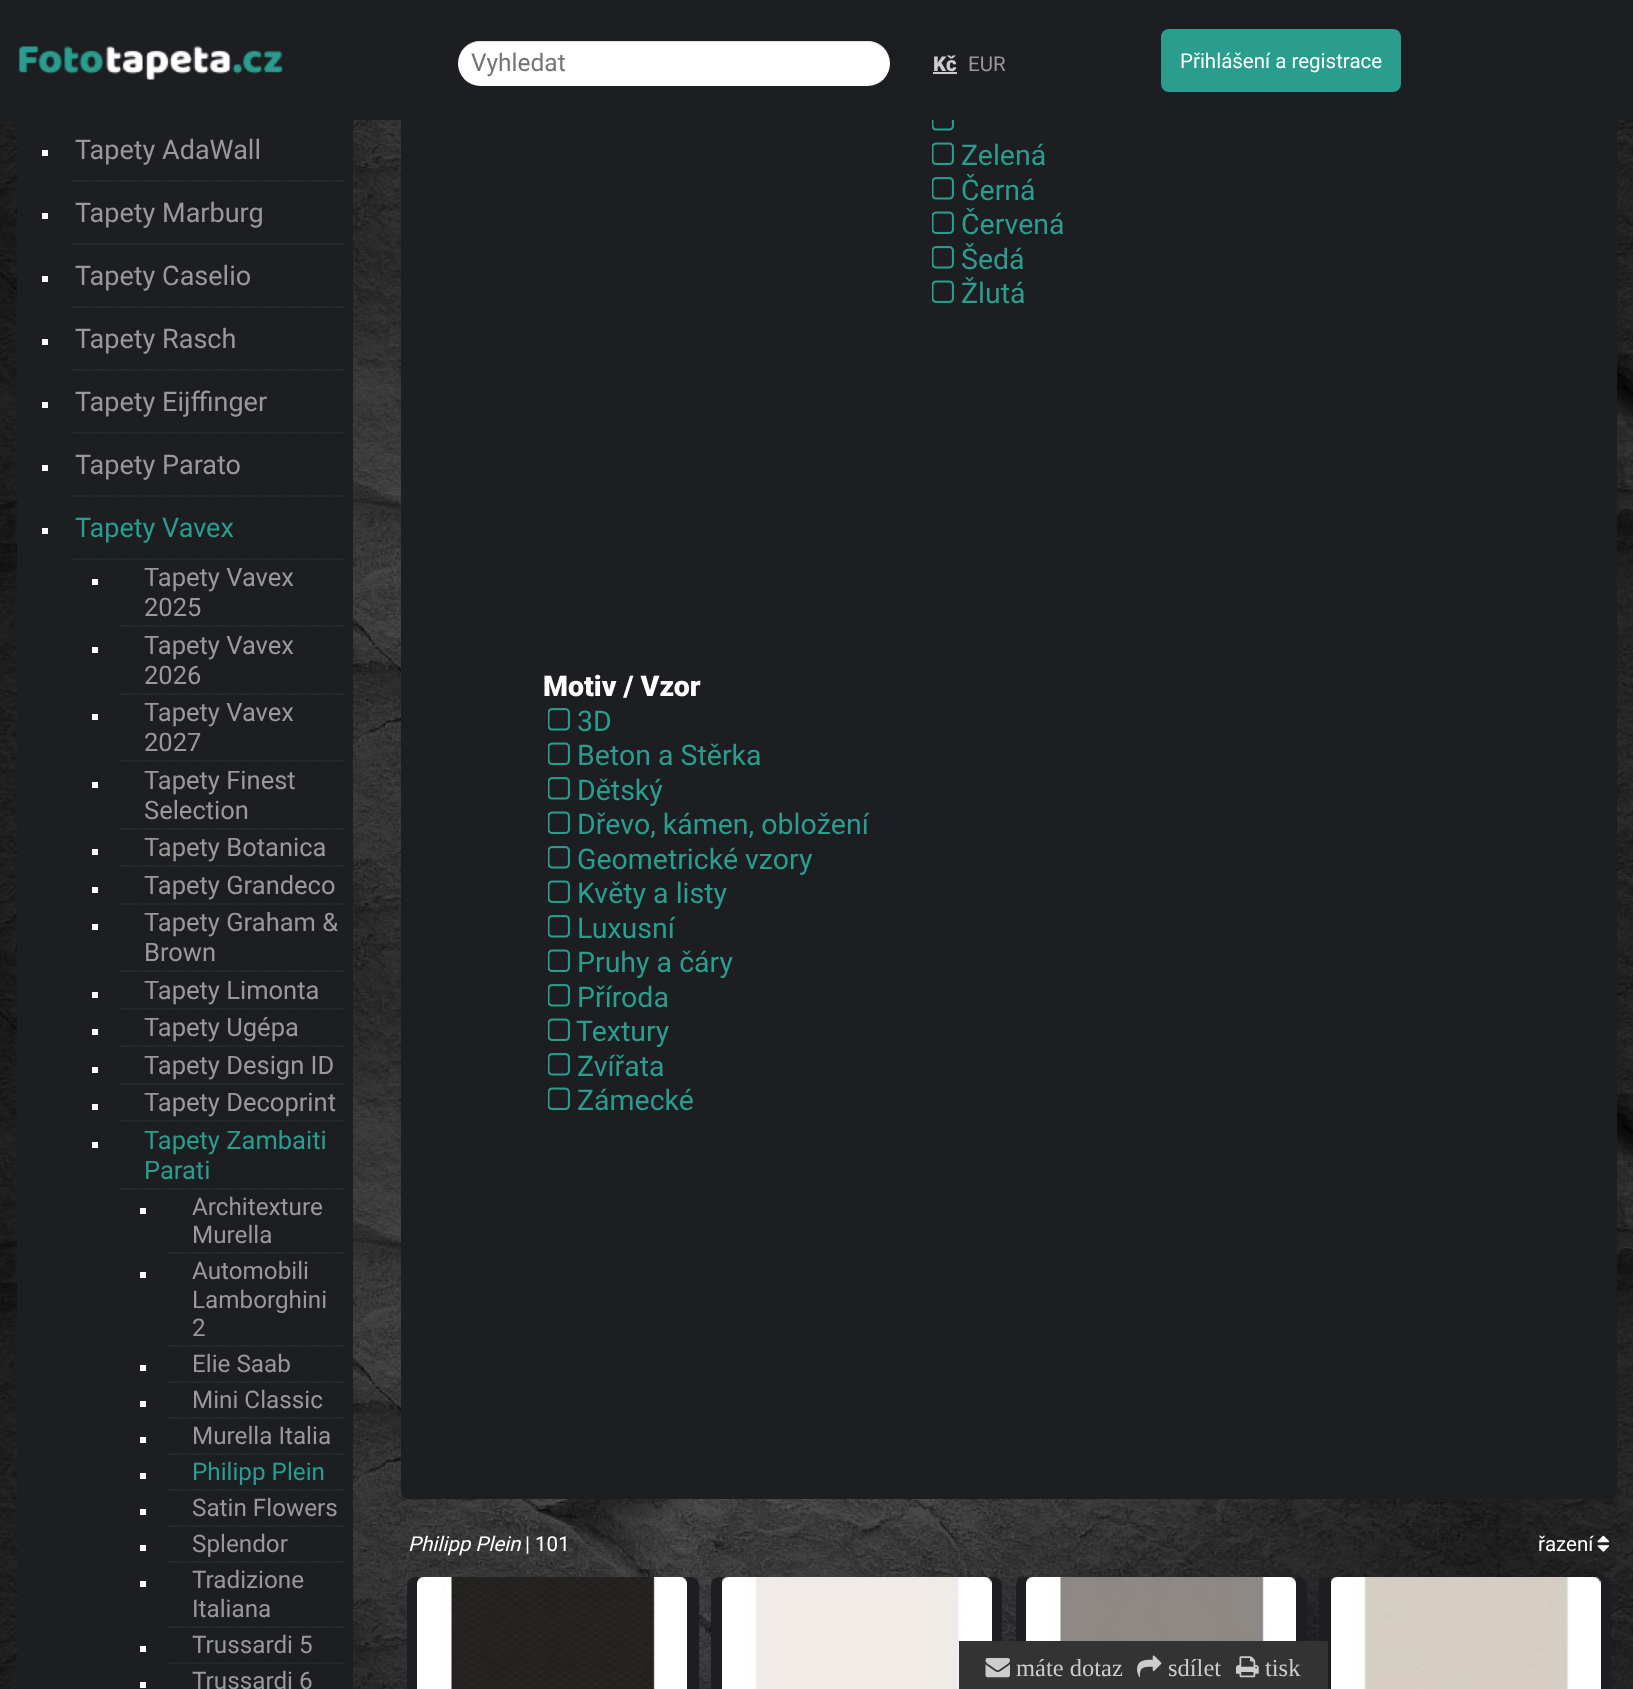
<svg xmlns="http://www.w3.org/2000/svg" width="1633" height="1689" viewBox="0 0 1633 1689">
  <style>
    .t1 { font: 24.5px Roboto; fill: #757575; }
    .t2 { font: 900 20.5px Roboto; fill: #ccc; }
    .t3 { font: 20.5px Roboto; fill: #999; }
    .t4 { font: 20.5px Roboto; fill: #fff; }
    .t5 { font: 27px Roboto; fill: #999; }
    .t6 { font: 27px Roboto; fill: #2a9d8f; }
    .t7 { font: 25.5px Roboto; fill: #999; }
    .t8 { font: 25.5px Roboto; fill: #2a9d8f; }
    .t9 { font: 24.25px Roboto; fill: #999; }
    .t10 { font: 24.25px Roboto; fill: #2a9d8f; }
    .t11 { font: 28.5px Roboto; fill: #2a9d8f; }
    .t12 { font: 900 28.5px Roboto; fill: #fff; }
    .t13 { font: italic 20.5px Roboto; fill: #fff; }
    .t14 { font: 24.5px Liberation Serif; fill: #ccc; }
  </style>
  <rect width="100%" height="100%" fill="#fff"/>
  <image x="0" y="120" width="1633" height="1569" href="images/1.png"/>
  <rect x="401" y="-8" width="1216" height="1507" rx="8" fill="#1c1e22"/>
  <rect x="0" y="0" width="1633" height="120" fill="#1c1e22"/>
  <image x="18" y="46" width="265" height="34" href="images/2.png"/>
  <rect x="458" y="41" width="432" height="45" rx="22.5" fill="#fff"/>
  <path d="M480 42H867C879 42 890 52 890 64C890 51 880 41 868 41H480C468 41 458 51 458 64C458 52 468 42 480 42Z" fill="#ddd"/>
  <text x="471" y="71" class="t1">Vyhledat</text>
  <text x="933" y="71" class="t2">Kč</text>
  <rect x="933" y="72" width="24" height="2" fill="#ccc"/>
  <text x="968" y="71" class="t3">EUR</text>
  <rect x="1161" y="29" width="240" height="63" rx="8" fill="#2a9d8f"/>
  <text x="1180" y="68" class="t4">Přihlášení a registrace</text>
  <rect x="17" y="120" width="336" height="1569" fill="#1c1e22"/>
  <rect x="42" y="150" width="6" height="6" fill="#fff"/>
  <path d="M72 181H345" fill="none" stroke="#35373a" stroke-width="1.5" stroke-dasharray="1.5 1.5"/>
  <text x="75" y="159" class="t5">Tapety AdaWall</text>
  <rect x="42" y="213" width="6" height="6" fill="#fff"/>
  <path d="M72 244H345" fill="none" stroke="#35373a" stroke-width="1.5" stroke-dasharray="1.5 1.5"/>
  <text x="75" y="222" class="t5">Tapety Marburg</text>
  <rect x="42" y="276" width="6" height="6" fill="#fff"/>
  <path d="M72 307H345" fill="none" stroke="#35373a" stroke-width="1.5" stroke-dasharray="1.5 1.5"/>
  <text x="75" y="285" class="t5">Tapety Caselio</text>
  <rect x="42" y="339" width="6" height="6" fill="#fff"/>
  <path d="M72 370H345" fill="none" stroke="#35373a" stroke-width="1.5" stroke-dasharray="1.5 1.5"/>
  <text x="75" y="348" class="t5">Tapety Rasch</text>
  <rect x="42" y="402" width="6" height="6" fill="#fff"/>
  <path d="M72 433H345" fill="none" stroke="#35373a" stroke-width="1.5" stroke-dasharray="1.5 1.5"/>
  <text x="75" y="411" class="t5">Tapety Eijffinger</text>
  <rect x="42" y="465" width="6" height="6" fill="#fff"/>
  <path d="M72 496H345" fill="none" stroke="#35373a" stroke-width="1.5" stroke-dasharray="1.5 1.5"/>
  <text x="75" y="474" class="t5">Tapety Parato</text>
  <rect x="42" y="528" width="6" height="6" fill="#fff"/>
  <path d="M72 559H345" fill="none" stroke="#35373a" stroke-width="1.5" stroke-dasharray="1.5 1.5"/>
  <text x="75" y="537" class="t6">Tapety Vavex</text>
  <rect x="92" y="579" width="6" height="6" fill="#fff"/>
  <path d="M120 626H345" fill="none" stroke="#35373a" stroke-width="1.5" stroke-dasharray="1.5 1.5"/>
  <text x="144" y="586" class="t7">Tapety Vavex</text>
  <text x="144" y="616" class="t7">2025</text>
  <rect x="92" y="647" width="6" height="6" fill="#fff"/>
  <path d="M120 694H345" fill="none" stroke="#35373a" stroke-width="1.5" stroke-dasharray="1.5 1.5"/>
  <text x="144" y="654" class="t7">Tapety Vavex</text>
  <text x="144" y="684" class="t7">2026</text>
  <rect x="92" y="714" width="6" height="6" fill="#fff"/>
  <path d="M120 761H345" fill="none" stroke="#35373a" stroke-width="1.5" stroke-dasharray="1.5 1.5"/>
  <text x="144" y="721" class="t7">Tapety Vavex</text>
  <text x="144" y="751" class="t7">2027</text>
  <rect x="92" y="782" width="6" height="6" fill="#fff"/>
  <path d="M120 829H345" fill="none" stroke="#35373a" stroke-width="1.5" stroke-dasharray="1.5 1.5"/>
  <text x="144" y="789" class="t7">Tapety Finest</text>
  <text x="144" y="819" class="t7">Selection</text>
  <rect x="92" y="849" width="6" height="6" fill="#fff"/>
  <path d="M120 866H345" fill="none" stroke="#35373a" stroke-width="1.5" stroke-dasharray="1.5 1.5"/>
  <text x="144" y="856" class="t7">Tapety Botanica</text>
  <rect x="92" y="887" width="6" height="6" fill="#fff"/>
  <path d="M120 904H345" fill="none" stroke="#35373a" stroke-width="1.5" stroke-dasharray="1.5 1.5"/>
  <text x="144" y="894" class="t7">Tapety Grandeco</text>
  <rect x="92" y="924" width="6" height="6" fill="#fff"/>
  <path d="M120 971H345" fill="none" stroke="#35373a" stroke-width="1.5" stroke-dasharray="1.5 1.5"/>
  <text x="144" y="931" class="t7">Tapety Graham &amp;</text>
  <text x="144" y="961" class="t7">Brown</text>
  <rect x="92" y="992" width="6" height="6" fill="#fff"/>
  <path d="M120 1009H345" fill="none" stroke="#35373a" stroke-width="1.5" stroke-dasharray="1.5 1.5"/>
  <text x="144" y="999" class="t7">Tapety Limonta</text>
  <rect x="92" y="1029" width="6" height="6" fill="#fff"/>
  <path d="M120 1046H345" fill="none" stroke="#35373a" stroke-width="1.5" stroke-dasharray="1.5 1.5"/>
  <text x="144" y="1036" class="t7">Tapety Ugépa</text>
  <rect x="92" y="1067" width="6" height="6" fill="#fff"/>
  <path d="M120 1084H345" fill="none" stroke="#35373a" stroke-width="1.5" stroke-dasharray="1.5 1.5"/>
  <text x="144" y="1074" class="t7">Tapety Design ID</text>
  <rect x="92" y="1104" width="6" height="6" fill="#fff"/>
  <path d="M120 1121H345" fill="none" stroke="#35373a" stroke-width="1.5" stroke-dasharray="1.5 1.5"/>
  <text x="144" y="1111" class="t7">Tapety Decoprint</text>
  <rect x="92" y="1142" width="6" height="6" fill="#fff"/>
  <path d="M120 1189H345" fill="none" stroke="#35373a" stroke-width="1.5" stroke-dasharray="1.5 1.5"/>
  <text x="144" y="1149" class="t8">Tapety Zambaiti</text>
  <text x="144" y="1179" class="t8">Parati</text>
  <rect x="140" y="1208" width="6" height="6" fill="#fff"/>
  <path d="M168 1253H345" fill="none" stroke="#35373a" stroke-width="1.5" stroke-dasharray="1.5 1.5"/>
  <text x="192" y="1215" class="t9">Architexture</text>
  <text x="192" y="1243" class="t9">Murella</text>
  <rect x="140" y="1272" width="6" height="6" fill="#fff"/>
  <path d="M168 1346H345" fill="none" stroke="#35373a" stroke-width="1.5" stroke-dasharray="1.5 1.5"/>
  <text x="192" y="1279" class="t9">Automobili</text>
  <text x="192" y="1308" class="t9">Lamborghini</text>
  <text x="192" y="1336" class="t9">2</text>
  <rect x="140" y="1365" width="6" height="6" fill="#fff"/>
  <path d="M168 1382H345" fill="none" stroke="#35373a" stroke-width="1.5" stroke-dasharray="1.5 1.5"/>
  <text x="192" y="1372" class="t9">Elie Saab</text>
  <rect x="140" y="1401" width="6" height="6" fill="#fff"/>
  <path d="M168 1418H345" fill="none" stroke="#35373a" stroke-width="1.5" stroke-dasharray="1.5 1.5"/>
  <text x="192" y="1408" class="t9">Mini Classic</text>
  <rect x="140" y="1437" width="6" height="6" fill="#fff"/>
  <path d="M168 1454H345" fill="none" stroke="#35373a" stroke-width="1.5" stroke-dasharray="1.5 1.5"/>
  <text x="192" y="1444" class="t9">Murella Italia</text>
  <rect x="140" y="1473" width="6" height="6" fill="#fff"/>
  <path d="M168 1490H345" fill="none" stroke="#35373a" stroke-width="1.5" stroke-dasharray="1.5 1.5"/>
  <text x="192" y="1480" class="t10">Philipp Plein</text>
  <rect x="140" y="1509" width="6" height="6" fill="#fff"/>
  <path d="M168 1526H345" fill="none" stroke="#35373a" stroke-width="1.5" stroke-dasharray="1.5 1.5"/>
  <text x="192" y="1516" class="t9">Satin Flowers</text>
  <rect x="140" y="1545" width="6" height="6" fill="#fff"/>
  <path d="M168 1562H345" fill="none" stroke="#35373a" stroke-width="1.5" stroke-dasharray="1.5 1.5"/>
  <text x="192" y="1552" class="t9">Splendor</text>
  <rect x="140" y="1581" width="6" height="6" fill="#fff"/>
  <path d="M168 1627H345" fill="none" stroke="#35373a" stroke-width="1.5" stroke-dasharray="1.5 1.5"/>
  <text x="192" y="1588" class="t9">Tradizione</text>
  <text x="192" y="1617" class="t9">Italiana</text>
  <rect x="140" y="1646" width="6" height="6" fill="#fff"/>
  <path d="M168 1663H345" fill="none" stroke="#35373a" stroke-width="1.5" stroke-dasharray="1.5 1.5"/>
  <text x="192" y="1653" class="t9">Trussardi 5</text>
  <rect x="140" y="1682" width="6" height="6" fill="#fff"/>
  <text x="192" y="1689" class="t9">Trussardi 6</text>
  <image x="932" y="120" width="22" height="11" href="images/3.png"/>
  <image x="932" y="142" width="22" height="23" href="images/4.png"/>
  <text x="961" y="165" class="t11">Zelená</text>
  <image x="932" y="177" width="22" height="23" href="images/5.png"/>
  <text x="961" y="200" class="t11">Černá</text>
  <image x="932" y="211" width="22" height="23" href="images/4.png"/>
  <text x="961" y="234" class="t11">Červená</text>
  <image x="932" y="246" width="22" height="23" href="images/5.png"/>
  <text x="961" y="269" class="t11">Šedá</text>
  <image x="932" y="280" width="22" height="23" href="images/4.png"/>
  <text x="961" y="303" class="t11">Žlutá</text>
  <text x="543" y="696" class="t12">Motiv / Vzor</text>
  <image x="548" y="708" width="22" height="23" href="images/5.png"/>
  <text x="577" y="731" class="t11">3D</text>
  <image x="548" y="742" width="22" height="23" href="images/4.png"/>
  <text x="577" y="765" class="t11">Beton a Stěrka</text>
  <image x="548" y="777" width="22" height="23" href="images/5.png"/>
  <text x="577" y="800" class="t11">Dětský</text>
  <image x="548" y="811" width="22" height="23" href="images/4.png"/>
  <text x="577" y="834" class="t11">Dřevo, kámen, obložení</text>
  <image x="548" y="846" width="22" height="23" href="images/5.png"/>
  <text x="577" y="869" class="t11">Geometrické vzory</text>
  <image x="548" y="880" width="22" height="23" href="images/4.png"/>
  <text x="577" y="903" class="t11">Květy a listy</text>
  <image x="548" y="915" width="22" height="23" href="images/5.png"/>
  <text x="577" y="938" class="t11">Luxusní</text>
  <image x="548" y="949" width="22" height="23" href="images/4.png"/>
  <text x="577" y="972" class="t11">Pruhy a čáry</text>
  <image x="548" y="984" width="22" height="23" href="images/5.png"/>
  <text x="577" y="1007" class="t11">Příroda</text>
  <image x="548" y="1018" width="22" height="23" href="images/4.png"/>
  <text x="576" y="1041" class="t11">Textury</text>
  <image x="548" y="1053" width="22" height="23" href="images/5.png"/>
  <text x="577" y="1076" class="t11">Zvířata</text>
  <image x="548" y="1087" width="22" height="23" href="images/4.png"/>
  <text x="577" y="1110" class="t11">Zámecké</text>
  <text x="408" y="1551" class="t13">Philipp Plein</text>
  <text x="525" y="1551" class="t4">| 101</text>
  <text x="1538" y="1551" class="t4">řazení</text>
  <image x="1597" y="1535" width="13" height="17" href="images/6.png"/>
  <rect x="407" y="1577" width="292" height="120" rx="8" fill="#1c1e22"/>
  <image x="417" y="1577" width="270" height="112" href="images/7.png"/>
  <rect x="711" y="1577" width="291" height="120" rx="8" fill="#1c1e22"/>
  <image x="722" y="1577" width="270" height="112" href="images/8.png"/>
  <rect x="1016" y="1577" width="291" height="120" rx="8" fill="#1c1e22"/>
  <image x="1026" y="1577" width="270" height="64" href="images/9.png"/>
  <rect x="1319" y="1577" width="292" height="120" rx="8" fill="#1c1e22"/>
  <image x="1331" y="1577" width="270" height="112" href="images/10.png"/>
  <rect x="959" y="1641" width="369" height="48" fill="#333"/>
  <image x="985" y="1658" width="25" height="20" href="images/11.png"/>
  <text x="1016" y="1676" class="t14">máte dotaz</text>
  <image x="1137" y="1655" width="25" height="23" href="images/12.png"/>
  <text x="1168" y="1676" class="t14">sdílet</text>
  <image x="1236" y="1656" width="23" height="22" href="images/13.png"/>
  <text x="1265" y="1676" class="t14">tisk</text>
</svg>
